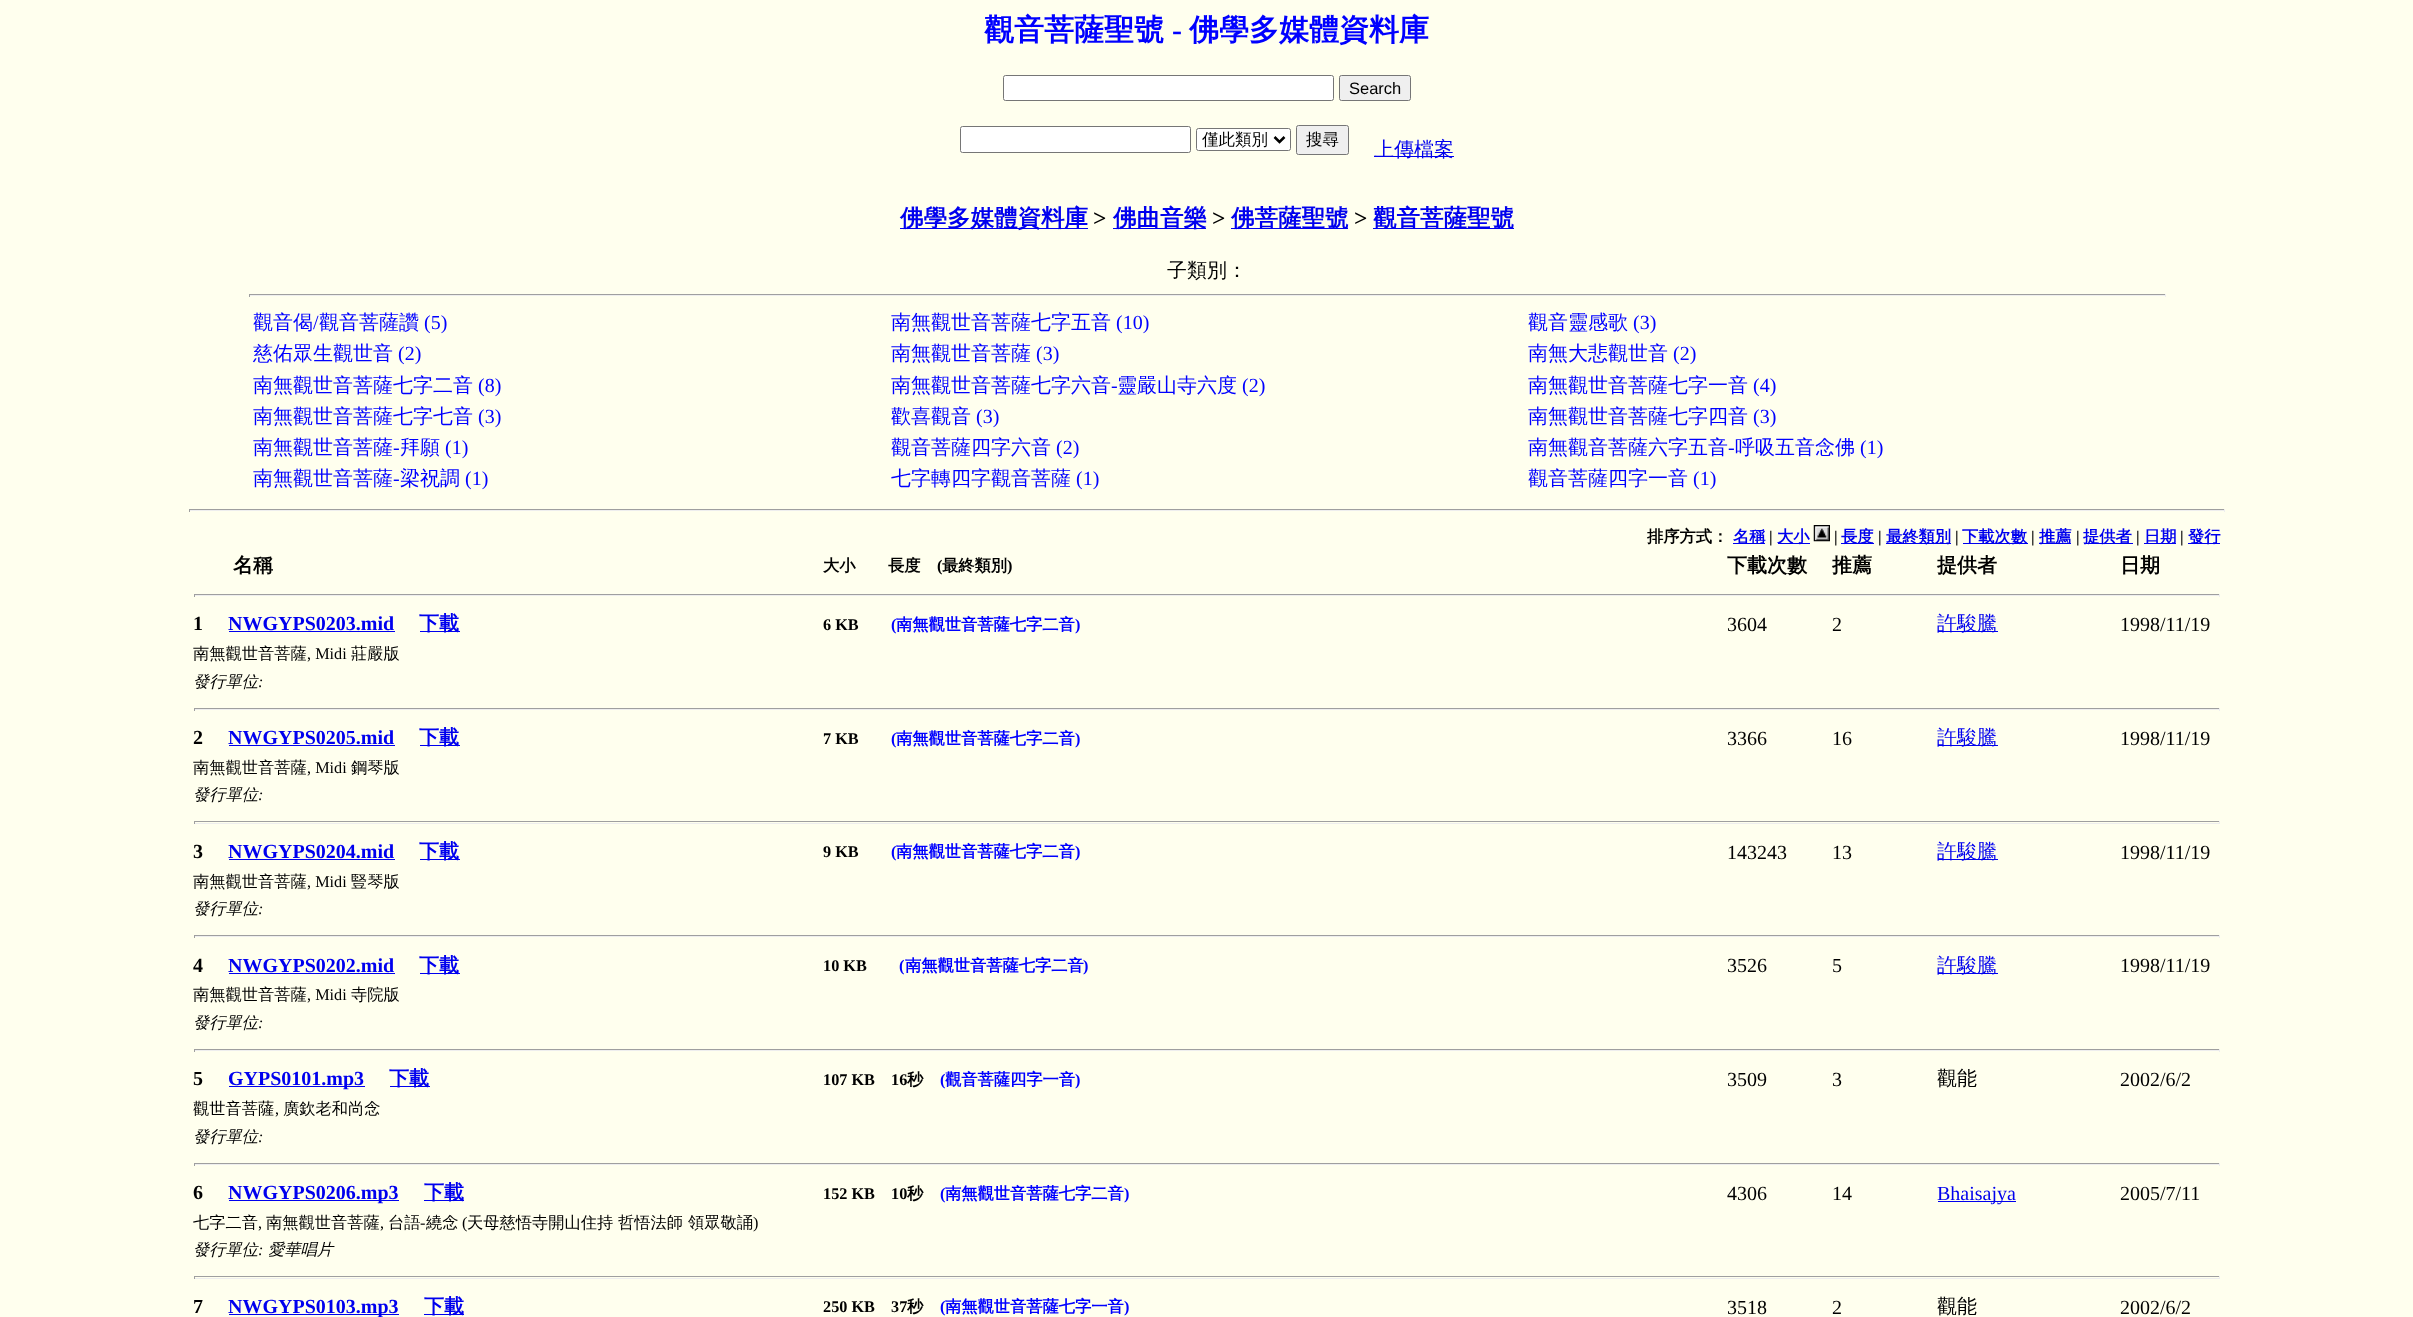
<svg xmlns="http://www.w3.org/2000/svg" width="2413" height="1317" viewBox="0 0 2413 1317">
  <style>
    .t1 { font: bold 30px WenQuanYi Zen Hei; fill: #00f; }
    .t2 { font: bold 30px Liberation Serif; fill: #00f; }
    .t3 { font: 16.5px Liberation Sans; fill: #000; }
    .t4 { font: 500 16.5px WenQuanYi Zen Hei; fill: #000; }
    .t5 { font: 500 20px WenQuanYi Zen Hei; fill: #00e; }
    .t6 { font: bold 23.5px WenQuanYi Zen Hei; fill: #00e; }
    .t7 { font: bold 23.5px Liberation Serif; fill: #000; }
    .t8 { font: 500 20px WenQuanYi Zen Hei; fill: #000; }
    .t9 { font: 500 20px WenQuanYi Zen Hei; fill: #00f; }
    .t10 { font: 20px Liberation Serif; fill: #00f; }
    .t11 { font: bold 16.25px WenQuanYi Zen Hei; fill: #000; }
    .t12 { font: bold 16.25px WenQuanYi Zen Hei; fill: #00e; }
    .t13 { font: bold 16.25px Liberation Serif; fill: #000; }
    .t14 { font: bold 20px WenQuanYi Zen Hei; fill: #000; }
    .t15 { font: bold 20px Liberation Serif; fill: #000; }
    .t16 { font: bold 20px Liberation Serif; fill: #00e; }
    .t17 { font: bold 20px WenQuanYi Zen Hei; fill: #00e; }
    .t18 { font: bold 16.25px Liberation Serif; fill: #00f; }
    .t19 { font: bold 16.25px WenQuanYi Zen Hei; fill: #00f; }
    .t20 { font: 20px Liberation Serif; fill: #000; }
    .t21 { font: 500 16.25px WenQuanYi Zen Hei; fill: #000; }
    .t22 { font: 16.25px Liberation Serif; fill: #000; }
    .t23 { font: italic 500 16.25px WenQuanYi Zen Hei; fill: #000; }
    .t24 { font: italic 16.25px Liberation Serif; fill: #000; }
    .t25 { font: 20px Liberation Serif; fill: #00e; }
  </style>
  <rect width="100%" height="100%" fill="#ffe"/>
  <text x="984" y="40" class="t1">觀音菩薩聖號</text>
  <text x="1172" y="40" class="t2">-</text>
  <text x="1189" y="40" class="t1">佛學多媒體資料庫</text>
  <rect x="1003.5" y="75.5" width="330" height="25" rx="2" fill="#fff" stroke="#767676"/>
  <rect x="1339.5" y="75.5" width="71" height="25" rx="2" fill="#efefef" stroke="#767676"/>
  <text x="1349" y="94" class="t3">Search</text>
  <rect x="960.5" y="126.5" width="230" height="26" rx="2" fill="#fff" stroke="#767676"/>
  <rect x="1196.5" y="128.5" width="94" height="22" rx="2" fill="#fff" stroke="#767676"/>
  <path d="M1274.5 137L1279.5 142L1284.5 137" fill="none" stroke="#000" stroke-width="2.5"/>
  <text x="1202" y="145" class="t4">僅此類別</text>
  <rect x="1296.5" y="125.5" width="52" height="29" rx="2" fill="#efefef" stroke="#767676"/>
  <text x="1306" y="145" class="t4">搜尋</text>
  <rect x="1374" y="156" width="80" height="1" fill="#00e"/>
  <text x="1374" y="156" class="t5">上傳檔案</text>
  <rect x="900" y="228" width="188" height="1" fill="#00e"/>
  <text x="900" y="226" class="t6">佛學多媒體資料庫</text>
  <text x="1093" y="226" class="t7">&gt;</text>
  <rect x="1113" y="228" width="93" height="1" fill="#00e"/>
  <text x="1113" y="226" class="t6">佛曲音樂</text>
  <text x="1212" y="226" class="t7">&gt;</text>
  <rect x="1231" y="228" width="117" height="1" fill="#00e"/>
  <text x="1231" y="226" class="t6">佛菩薩聖號</text>
  <text x="1354" y="226" class="t7">&gt;</text>
  <rect x="1373" y="228" width="141" height="1" fill="#00e"/>
  <text x="1373" y="226" class="t6">觀音菩薩聖號</text>
  <text x="1167" y="277" class="t8">子類別：</text>
  <rect x="249" y="294" width="1917" height="1" fill="#9f9f9f"/>
  <rect x="2165" y="294" width="1" height="3" fill="#eee"/>
  <rect x="249" y="295" width="1917" height="1" fill="#eee"/>
  <rect x="249" y="294" width="1" height="3" fill="#9f9f9f"/>
  <text x="253" y="329" class="t9">觀音偈</text>
  <text x="313" y="329" class="t10">/</text>
  <text x="319" y="329" class="t9">觀音菩薩讚</text>
  <text x="424" y="329" class="t10">(5)</text>
  <text x="891" y="329" class="t9">南無觀世音菩薩七字五音</text>
  <text x="1116" y="329" class="t10">(10)</text>
  <text x="1528" y="329" class="t9">觀音靈感歌</text>
  <text x="1633" y="329" class="t10">(3)</text>
  <text x="253" y="360" class="t9">慈佑眾生觀世音</text>
  <text x="398" y="360" class="t10">(2)</text>
  <text x="891" y="360" class="t9">南無觀世音菩薩</text>
  <text x="1036" y="360" class="t10">(3)</text>
  <text x="1528" y="360" class="t9">南無大悲觀世音</text>
  <text x="1673" y="360" class="t10">(2)</text>
  <text x="253" y="392" class="t9">南無觀世音菩薩七字二音</text>
  <text x="478" y="392" class="t10">(8)</text>
  <text x="891" y="392" class="t9">南無觀世音菩薩七字六音</text>
  <text x="1111" y="392" class="t10">-</text>
  <text x="1117" y="392" class="t9">靈嚴山寺六度</text>
  <text x="1242" y="392" class="t10">(2)</text>
  <text x="1528" y="392" class="t9">南無觀世音菩薩七字一音</text>
  <text x="1753" y="392" class="t10">(4)</text>
  <text x="253" y="423" class="t9">南無觀世音菩薩七字七音</text>
  <text x="478" y="423" class="t10">(3)</text>
  <text x="891" y="423" class="t9">歡喜觀音</text>
  <text x="976" y="423" class="t10">(3)</text>
  <text x="1528" y="423" class="t9">南無觀世音菩薩七字四音</text>
  <text x="1753" y="423" class="t10">(3)</text>
  <text x="253" y="454" class="t9">南無觀世音菩薩</text>
  <text x="393" y="454" class="t10">-</text>
  <text x="400" y="454" class="t9">拜願</text>
  <text x="445" y="454" class="t10">(1)</text>
  <text x="891" y="454" class="t9">觀音菩薩四字六音</text>
  <text x="1056" y="454" class="t10">(2)</text>
  <text x="1528" y="454" class="t9">南無觀音菩薩六字五音</text>
  <text x="1728" y="454" class="t10">-</text>
  <text x="1735" y="454" class="t9">呼吸五音念佛</text>
  <text x="1860" y="454" class="t10">(1)</text>
  <text x="253" y="485" class="t9">南無觀世音菩薩</text>
  <text x="393" y="485" class="t10">-</text>
  <text x="400" y="485" class="t9">梁祝調</text>
  <text x="465" y="485" class="t10">(1)</text>
  <text x="891" y="485" class="t9">七字轉四字觀音菩薩</text>
  <text x="1076" y="485" class="t10">(1)</text>
  <text x="1528" y="485" class="t9">觀音菩薩四字一音</text>
  <text x="1693" y="485" class="t10">(1)</text>
  <rect x="189" y="509" width="2036" height="1" fill="#9f9f9f"/>
  <rect x="2224" y="509" width="1" height="3" fill="#eee"/>
  <rect x="189" y="510" width="2036" height="1" fill="#eee"/>
  <rect x="189" y="509" width="1" height="3" fill="#9f9f9f"/>
  <text x="1647" y="542" class="t11">排序方式：</text>
  <rect x="1733" y="543" width="32" height="1" fill="#00e"/>
  <text x="1733" y="542" class="t12">名稱</text>
  <text x="1769" y="542" class="t13">|</text>
  <rect x="1778" y="543" width="32" height="1" fill="#00e"/>
  <text x="1777" y="542" class="t12">大小</text>
  <image x="1813" y="525" width="17" height="17" href="images/1.png"/>
  <text x="1834" y="542" class="t13">|</text>
  <rect x="1841" y="543" width="33" height="1" fill="#00e"/>
  <text x="1841" y="542" class="t12">長度</text>
  <text x="1878" y="542" class="t13">|</text>
  <rect x="1886" y="543" width="65" height="1" fill="#00e"/>
  <text x="1886" y="542" class="t12">最終類別</text>
  <text x="1955" y="542" class="t13">|</text>
  <rect x="1963" y="543" width="65" height="1" fill="#00e"/>
  <text x="1962" y="542" class="t12">下載次數</text>
  <text x="2031" y="542" class="t13">|</text>
  <rect x="2039" y="543" width="32" height="1" fill="#00e"/>
  <text x="2039" y="542" class="t12">推薦</text>
  <text x="2076" y="542" class="t13">|</text>
  <rect x="2084" y="543" width="49" height="1" fill="#00e"/>
  <text x="2083" y="542" class="t12">提供者</text>
  <text x="2136" y="542" class="t13">|</text>
  <rect x="2144" y="543" width="32" height="1" fill="#00e"/>
  <text x="2144" y="542" class="t12">日期</text>
  <text x="2180" y="542" class="t13">|</text>
  <rect x="2188" y="543" width="32" height="1" fill="#00e"/>
  <text x="2188" y="542" class="t12">發行</text>
  <text x="233" y="572" class="t14">名稱</text>
  <text x="823" y="571" class="t11">大小　　長度</text>
  <text x="937" y="571" class="t13">(</text>
  <text x="942" y="571" class="t11">最終類別</text>
  <text x="1007" y="571" class="t13">)</text>
  <text x="1727" y="572" class="t14">下載次數</text>
  <text x="1832" y="572" class="t14">推薦</text>
  <text x="1937" y="572" class="t14">提供者</text>
  <text x="2120" y="572" class="t14">日期</text>
  <rect x="194" y="594" width="2026" height="1" fill="#9f9f9f"/>
  <rect x="2219" y="594" width="1" height="3" fill="#eee"/>
  <rect x="194" y="595" width="2026" height="1" fill="#eee"/>
  <rect x="194" y="594" width="1" height="3" fill="#9f9f9f"/>
  <text x="193" y="630" class="t15">1</text>
  <text x="228" y="630" class="t16">NWGYPS0203.mid</text>
  <rect x="229" y="631" width="166" height="1" fill="#00e"/>
  <rect x="420" y="631" width="40" height="1" fill="#00e"/>
  <text x="419" y="630" class="t17">下載</text>
  <text x="823" y="630" class="t13">6 KB</text>
  <text x="891" y="630" class="t18">(</text>
  <text x="896" y="630" class="t19">南無觀世音菩薩七字二音</text>
  <text x="1075" y="630" class="t18">)</text>
  <text x="1727" y="631" class="t20">3604</text>
  <text x="1832" y="631" class="t20">2</text>
  <rect x="1938" y="631" width="60" height="1" fill="#00e"/>
  <text x="1937" y="630" class="t5">許駿騰</text>
  <text x="2120" y="631" class="t20">1998/11/19</text>
  <text x="193" y="659" class="t21">南無觀世音菩薩</text>
  <text x="307" y="659" class="t22">, Midi</text>
  <text x="351" y="659" class="t21">莊嚴版</text>
  <text x="193" y="687" class="t23">發行單位</text>
  <text x="258" y="687" class="t24">:</text>
  <rect x="194" y="708" width="2026" height="1" fill="#9f9f9f"/>
  <rect x="2219" y="708" width="1" height="3" fill="#eee"/>
  <rect x="194" y="709" width="2026" height="1" fill="#eee"/>
  <rect x="194" y="708" width="1" height="3" fill="#9f9f9f"/>
  <text x="193" y="744" class="t15">2</text>
  <text x="228" y="744" class="t16">NWGYPS0205.mid</text>
  <rect x="229" y="745" width="166" height="1" fill="#00e"/>
  <rect x="420" y="745" width="40" height="1" fill="#00e"/>
  <text x="419" y="744" class="t17">下載</text>
  <text x="823" y="744" class="t13">7 KB</text>
  <text x="891" y="744" class="t18">(</text>
  <text x="896" y="744" class="t19">南無觀世音菩薩七字二音</text>
  <text x="1075" y="744" class="t18">)</text>
  <text x="1727" y="745" class="t20">3366</text>
  <text x="1832" y="745" class="t20">16</text>
  <rect x="1938" y="745" width="60" height="1" fill="#00e"/>
  <text x="1937" y="744" class="t5">許駿騰</text>
  <text x="2120" y="745" class="t20">1998/11/19</text>
  <text x="193" y="773" class="t21">南無觀世音菩薩</text>
  <text x="307" y="773" class="t22">, Midi</text>
  <text x="351" y="773" class="t21">鋼琴版</text>
  <text x="193" y="800" class="t23">發行單位</text>
  <text x="258" y="800" class="t24">:</text>
  <rect x="194" y="821" width="2026" height="1" fill="#9f9f9f"/>
  <rect x="2219" y="821" width="1" height="3" fill="#eee"/>
  <rect x="194" y="823" width="2026" height="1" fill="#eee"/>
  <rect x="194" y="821" width="1" height="3" fill="#9f9f9f"/>
  <text x="193" y="858" class="t15">3</text>
  <text x="228" y="858" class="t16">NWGYPS0204.mid</text>
  <rect x="229" y="859" width="166" height="1" fill="#00e"/>
  <rect x="420" y="859" width="40" height="1" fill="#00e"/>
  <text x="419" y="858" class="t17">下載</text>
  <text x="823" y="857" class="t13">9 KB</text>
  <text x="891" y="857" class="t18">(</text>
  <text x="896" y="857" class="t19">南無觀世音菩薩七字二音</text>
  <text x="1075" y="857" class="t18">)</text>
  <text x="1727" y="859" class="t20">143243</text>
  <text x="1832" y="859" class="t20">13</text>
  <rect x="1938" y="859" width="60" height="1" fill="#00e"/>
  <text x="1937" y="858" class="t5">許駿騰</text>
  <text x="2120" y="859" class="t20">1998/11/19</text>
  <text x="193" y="887" class="t21">南無觀世音菩薩</text>
  <text x="307" y="887" class="t22">, Midi</text>
  <text x="351" y="887" class="t21">豎琴版</text>
  <text x="193" y="914" class="t23">發行單位</text>
  <text x="258" y="914" class="t24">:</text>
  <rect x="194" y="935" width="2026" height="1" fill="#9f9f9f"/>
  <rect x="2219" y="935" width="1" height="3" fill="#eee"/>
  <rect x="194" y="936" width="2026" height="1" fill="#eee"/>
  <rect x="194" y="935" width="1" height="3" fill="#9f9f9f"/>
  <text x="193" y="972" class="t15">4</text>
  <text x="228" y="972" class="t16">NWGYPS0202.mid</text>
  <rect x="229" y="973" width="166" height="1" fill="#00e"/>
  <rect x="420" y="973" width="40" height="1" fill="#00e"/>
  <text x="419" y="972" class="t17">下載</text>
  <text x="823" y="971" class="t13">10 KB</text>
  <text x="899" y="971" class="t18">(</text>
  <text x="905" y="971" class="t19">南無觀世音菩薩七字二音</text>
  <text x="1083" y="971" class="t18">)</text>
  <text x="1727" y="972" class="t20">3526</text>
  <text x="1832" y="972" class="t20">5</text>
  <rect x="1938" y="973" width="60" height="1" fill="#00e"/>
  <text x="1937" y="972" class="t5">許駿騰</text>
  <text x="2120" y="972" class="t20">1998/11/19</text>
  <text x="193" y="1000" class="t21">南無觀世音菩薩</text>
  <text x="307" y="1000" class="t22">, Midi</text>
  <text x="351" y="1000" class="t21">寺院版</text>
  <text x="193" y="1028" class="t23">發行單位</text>
  <text x="258" y="1028" class="t24">:</text>
  <rect x="194" y="1049" width="2026" height="1" fill="#9f9f9f"/>
  <rect x="2219" y="1049" width="1" height="3" fill="#eee"/>
  <rect x="194" y="1050" width="2026" height="1" fill="#eee"/>
  <rect x="194" y="1049" width="1" height="3" fill="#9f9f9f"/>
  <text x="193" y="1085" class="t15">5</text>
  <rect x="229" y="1086" width="136" height="1" fill="#00e"/>
  <text x="228" y="1085" class="t16">GYPS0101.mp3</text>
  <rect x="390" y="1086" width="40" height="1" fill="#00e"/>
  <text x="389" y="1085" class="t17">下載</text>
  <text x="823" y="1085" class="t13">107 KB</text>
  <text x="891" y="1085" class="t13">16</text>
  <text x="907" y="1085" class="t11">秒</text>
  <text x="940" y="1085" class="t18">(</text>
  <text x="945" y="1085" class="t19">觀音菩薩四字一音</text>
  <text x="1075" y="1085" class="t18">)</text>
  <text x="1727" y="1086" class="t20">3509</text>
  <text x="1832" y="1086" class="t20">3</text>
  <text x="1937" y="1085" class="t8">觀能</text>
  <text x="2120" y="1086" class="t20">2002/6/2</text>
  <text x="193" y="1114" class="t21">觀世音菩薩</text>
  <text x="275" y="1114" class="t22">,</text>
  <text x="283" y="1114" class="t21">廣欽老和尚念</text>
  <text x="193" y="1142" class="t23">發行單位</text>
  <text x="258" y="1142" class="t24">:</text>
  <rect x="194" y="1163" width="2026" height="1" fill="#9f9f9f"/>
  <rect x="2219" y="1163" width="1" height="3" fill="#eee"/>
  <rect x="194" y="1164" width="2026" height="1" fill="#eee"/>
  <rect x="194" y="1163" width="1" height="3" fill="#9f9f9f"/>
  <text x="193" y="1199" class="t15">6</text>
  <rect x="229" y="1200" width="170" height="1" fill="#00e"/>
  <text x="228" y="1199" class="t16">NWGYPS0206.mp3</text>
  <rect x="424" y="1200" width="40" height="1" fill="#00e"/>
  <text x="424" y="1199" class="t17">下載</text>
  <text x="823" y="1199" class="t13">152 KB</text>
  <text x="891" y="1199" class="t13">10</text>
  <text x="907" y="1199" class="t11">秒</text>
  <text x="940" y="1199" class="t18">(</text>
  <text x="945" y="1199" class="t19">南無觀世音菩薩七字二音</text>
  <text x="1124" y="1199" class="t18">)</text>
  <text x="1727" y="1200" class="t20">4306</text>
  <text x="1832" y="1200" class="t20">14</text>
  <rect x="1938" y="1201" width="78" height="1" fill="#00e"/>
  <text x="1937" y="1200" class="t25">Bhaisajya</text>
  <text x="2120" y="1200" class="t20">2005/7/11</text>
  <text x="193" y="1228" class="t21">七字二音</text>
  <text x="266" y="1228" class="t21">南無觀世音菩薩</text>
  <text x="388" y="1228" class="t21">台語</text>
  <text x="420" y="1228" class="t22">-</text>
  <text x="426" y="1228" class="t21">繞念</text>
  <text x="462" y="1228" class="t22">(</text>
  <text x="467" y="1228" class="t21">天母慈悟寺開山住持 哲悟法師 領眾敬誦</text>
  <text x="753" y="1228" class="t22">)</text>
  <text x="258" y="1228" class="t22">,</text>
  <text x="380" y="1228" class="t22">,</text>
  <text x="193" y="1255" class="t23">發行單位</text>
  <text x="258" y="1255" class="t24">:</text>
  <text x="268" y="1255" class="t23">愛華唱片</text>
  <rect x="194" y="1276" width="2026" height="1" fill="#9f9f9f"/>
  <rect x="2219" y="1276" width="1" height="3" fill="#eee"/>
  <rect x="194" y="1278" width="2026" height="1" fill="#eee"/>
  <rect x="194" y="1276" width="1" height="3" fill="#9f9f9f"/>
  <text x="193" y="1313" class="t15">7</text>
  <rect x="229" y="1314" width="170" height="1" fill="#00e"/>
  <text x="228" y="1313" class="t16">NWGYPS0103.mp3</text>
  <rect x="424" y="1314" width="40" height="1" fill="#00e"/>
  <text x="424" y="1313" class="t17">下載</text>
  <text x="823" y="1312" class="t13">250 KB</text>
  <text x="891" y="1312" class="t13">37</text>
  <text x="907" y="1312" class="t11">秒</text>
  <text x="940" y="1312" class="t18">(</text>
  <text x="945" y="1312" class="t19">南無觀世音菩薩七字一音</text>
  <text x="1124" y="1312" class="t18">)</text>
  <text x="1727" y="1314" class="t20">3518</text>
  <text x="1832" y="1314" class="t20">2</text>
  <text x="1937" y="1313" class="t8">觀能</text>
  <text x="2120" y="1314" class="t20">2002/6/2</text>
</svg>
